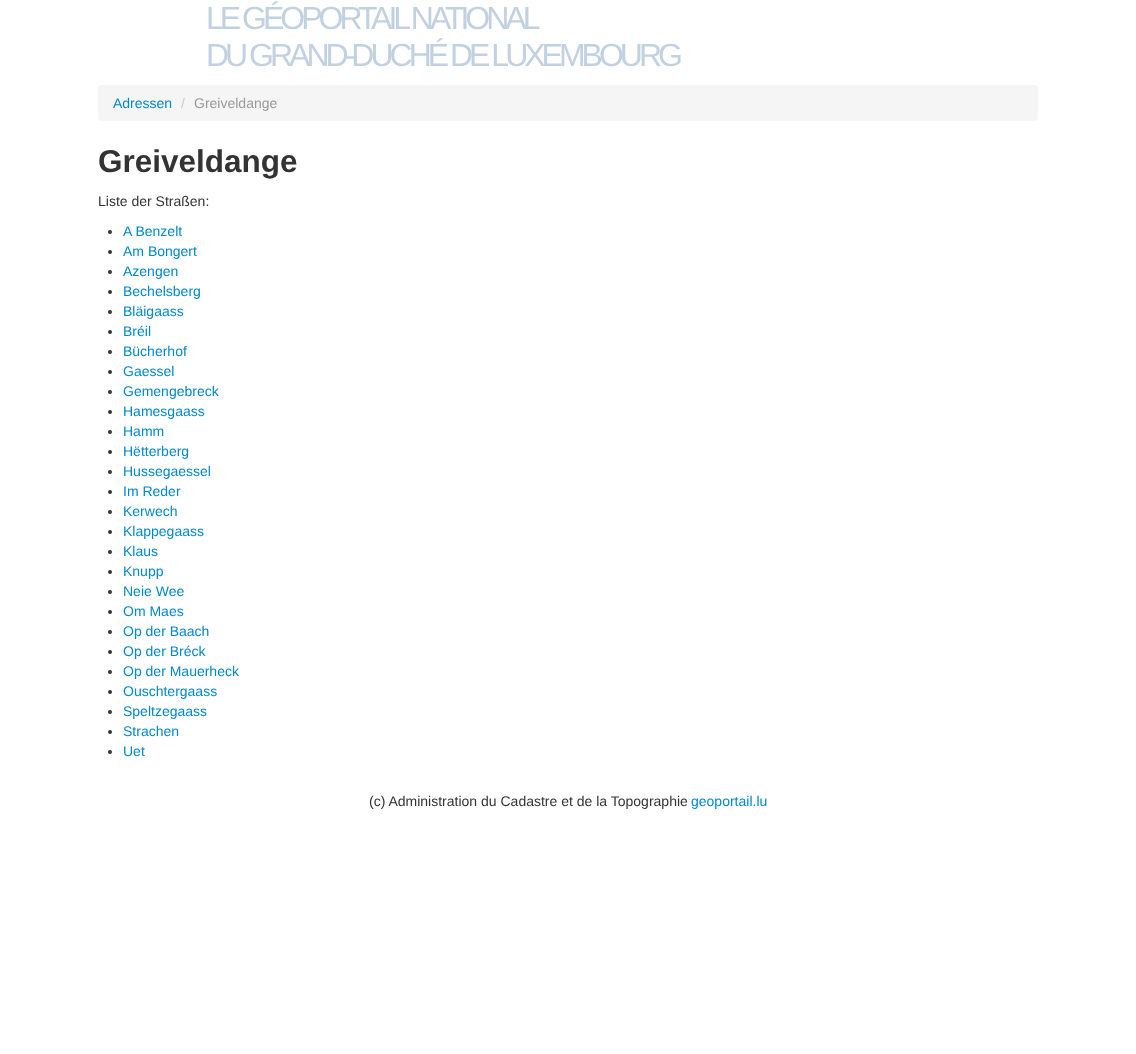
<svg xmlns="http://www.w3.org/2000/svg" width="1136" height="1054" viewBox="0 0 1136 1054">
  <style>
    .t1 { font: 32px Liberation Sans; letter-spacing: -4px; fill: #c2d1e1; }
    .t2 { font: 14px Liberation Sans; fill: #08c; }
    .t3 { font: 14px Liberation Sans; fill: #ccc; }
    .t4 { font: 14px Liberation Sans; fill: #999; }
    .t5 { font: bold 31.5px Liberation Sans; fill: #333; }
    .t6 { font: 14px Liberation Sans; fill: #333; }
  </style>
  <rect width="100%" height="100%" fill="#fff"/>
  <text x="206" y="29" class="t1">LE GÉOPORTAIL NATIONAL</text>
  <text x="206" y="66" class="t1">DU GRAND-DUCHÉ DE LUXEMBOURG</text>
  <rect x="98" y="85" width="940" height="36" rx="4" fill="#f5f5f5"/>
  <text x="113" y="108" class="t2">Adressen</text>
  <text x="181" y="108" class="t3">/</text>
  <text x="194" y="108" class="t4">Greiveldange</text>
  <text x="98" y="172" class="t5">Greiveldange</text>
  <text x="98" y="206" class="t6">Liste der Straßen:</text>
  <circle cx="110" cy="232" r="2" fill="#333"/>
  <text x="123" y="236" class="t2">A Benzelt</text>
  <circle cx="110" cy="252" r="2" fill="#333"/>
  <text x="123" y="256" class="t2">Am Bongert</text>
  <circle cx="110" cy="272" r="2" fill="#333"/>
  <text x="123" y="276" class="t2">Azengen</text>
  <circle cx="110" cy="292" r="2" fill="#333"/>
  <text x="123" y="296" class="t2">Bechelsberg</text>
  <circle cx="110" cy="312" r="2" fill="#333"/>
  <text x="123" y="316" class="t2">Bläigaass</text>
  <circle cx="110" cy="332" r="2" fill="#333"/>
  <text x="123" y="336" class="t2">Bréil</text>
  <circle cx="110" cy="352" r="2" fill="#333"/>
  <text x="123" y="356" class="t2">Bücherhof</text>
  <circle cx="110" cy="372" r="2" fill="#333"/>
  <text x="123" y="376" class="t2">Gaessel</text>
  <circle cx="110" cy="392" r="2" fill="#333"/>
  <text x="123" y="396" class="t2">Gemengebreck</text>
  <circle cx="110" cy="412" r="2" fill="#333"/>
  <text x="123" y="416" class="t2">Hamesgaass</text>
  <circle cx="110" cy="432" r="2" fill="#333"/>
  <text x="123" y="436" class="t2">Hamm</text>
  <circle cx="110" cy="452" r="2" fill="#333"/>
  <text x="123" y="456" class="t2">Hëtterberg</text>
  <circle cx="110" cy="472" r="2" fill="#333"/>
  <text x="123" y="476" class="t2">Hussegaessel</text>
  <circle cx="110" cy="492" r="2" fill="#333"/>
  <text x="123" y="496" class="t2">Im Reder</text>
  <circle cx="110" cy="512" r="2" fill="#333"/>
  <text x="123" y="516" class="t2">Kerwech</text>
  <circle cx="110" cy="532" r="2" fill="#333"/>
  <text x="123" y="536" class="t2">Klappegaass</text>
  <circle cx="110" cy="552" r="2" fill="#333"/>
  <text x="123" y="556" class="t2">Klaus</text>
  <circle cx="110" cy="572" r="2" fill="#333"/>
  <text x="123" y="576" class="t2">Knupp</text>
  <circle cx="110" cy="592" r="2" fill="#333"/>
  <text x="123" y="596" class="t2">Neie Wee</text>
  <circle cx="110" cy="612" r="2" fill="#333"/>
  <text x="123" y="616" class="t2">Om Maes</text>
  <circle cx="110" cy="632" r="2" fill="#333"/>
  <text x="123" y="636" class="t2">Op der Baach</text>
  <circle cx="110" cy="652" r="2" fill="#333"/>
  <text x="123" y="656" class="t2">Op der Bréck</text>
  <circle cx="110" cy="672" r="2" fill="#333"/>
  <text x="123" y="676" class="t2">Op der Mauerheck</text>
  <circle cx="110" cy="692" r="2" fill="#333"/>
  <text x="123" y="696" class="t2">Ouschtergaass</text>
  <circle cx="110" cy="712" r="2" fill="#333"/>
  <text x="123" y="716" class="t2">Speltzegaass</text>
  <circle cx="110" cy="732" r="2" fill="#333"/>
  <text x="123" y="736" class="t2">Strachen</text>
  <circle cx="110" cy="752" r="2" fill="#333"/>
  <text x="123" y="756" class="t2">Uet</text>
  <text x="369" y="806" class="t6">(c) Administration du Cadastre et de la Topographie</text>
  <text x="691" y="806" class="t2">geoportail.lu</text>
</svg>
